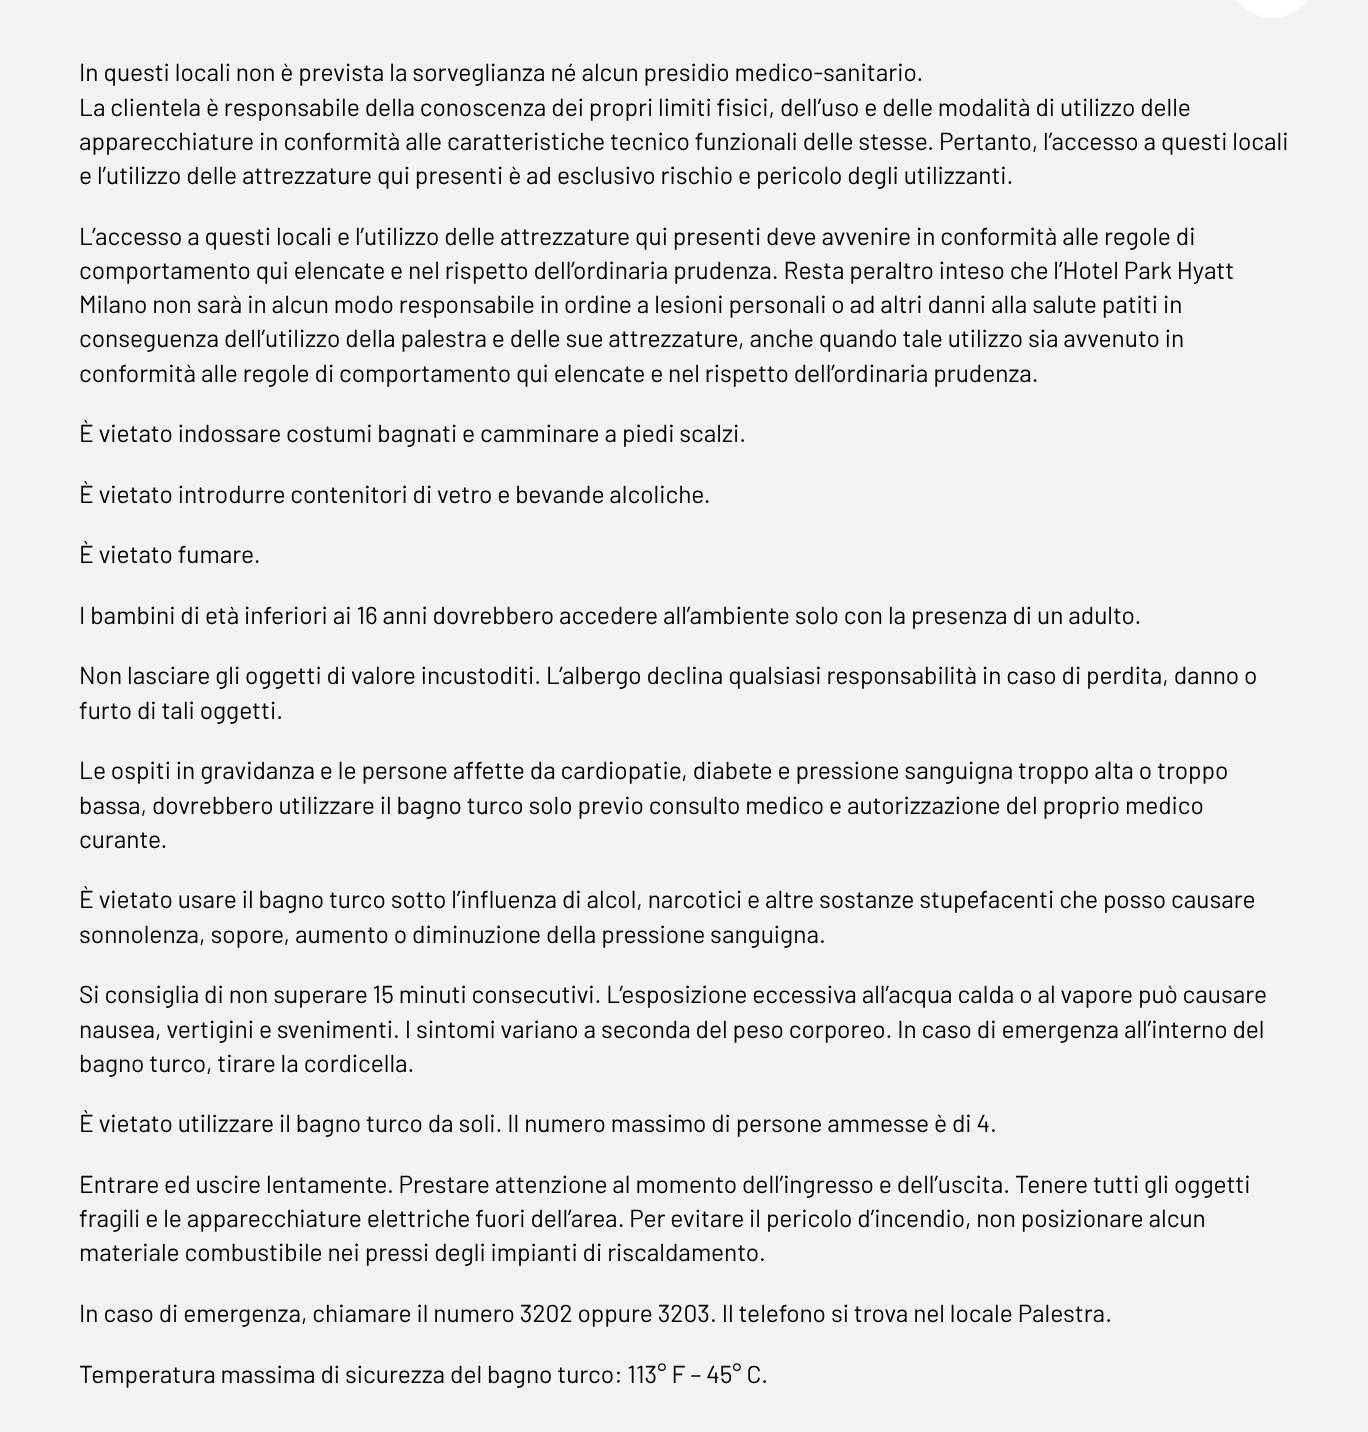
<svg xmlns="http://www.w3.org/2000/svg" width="1368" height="1432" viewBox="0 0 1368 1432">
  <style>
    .t1 { font: 24.5px Barlow; fill: #000; }
  </style>
  <rect width="100%" height="100%" fill="#f2f3f4"/>
  <image x="1237" y="0" width="71" height="18" href="images/1.png"/>
  <text x="79" y="81" class="t1">In questi locali non è prevista la sorveglianza né alcun presidio medico-sanitario.</text>
  <text x="79" y="116" class="t1">La clientela è responsabile della conoscenza dei propri limiti fisici, dell’uso e delle modalità di utilizzo delle</text>
  <text x="79" y="150" class="t1">apparecchiature in conformità alle caratteristiche tecnico funzionali delle stesse. Pertanto, l’accesso a questi locali</text>
  <text x="79" y="184" class="t1">e l’utilizzo delle attrezzature qui presenti è ad esclusivo rischio e pericolo degli utilizzanti.</text>
  <text x="79" y="245" class="t1">L’accesso a questi locali e l’utilizzo delle attrezzature qui presenti deve avvenire in conformità alle regole di</text>
  <text x="79" y="279" class="t1">comportamento qui elencate e nel rispetto dell’ordinaria prudenza. Resta peraltro inteso che l’Hotel Park Hyatt</text>
  <text x="79" y="313" class="t1">Milano non sarà in alcun modo responsabile in ordine a lesioni personali o ad altri danni alla salute patiti in</text>
  <text x="79" y="347" class="t1">conseguenza dell’utilizzo della palestra e delle sue attrezzature, anche quando tale utilizzo sia avvenuto in</text>
  <text x="79" y="382" class="t1">conformità alle regole di comportamento qui elencate e nel rispetto dell’ordinaria prudenza.</text>
  <text x="79" y="442" class="t1">È vietato indossare costumi bagnati e camminare a piedi scalzi.</text>
  <text x="79" y="503" class="t1">È vietato introdurre contenitori di vetro e bevande alcoliche.</text>
  <text x="79" y="563" class="t1">È vietato fumare.</text>
  <text x="79" y="624" class="t1">I bambini di età inferiori ai 16 anni dovrebbero accedere all’ambiente solo con la presenza di un adulto.</text>
  <text x="79" y="684" class="t1">Non lasciare gli oggetti di valore incustoditi. L’albergo declina qualsiasi responsabilità in caso di perdita, danno o</text>
  <text x="79" y="719" class="t1">furto di tali oggetti.</text>
  <text x="79" y="779" class="t1">Le ospiti in gravidanza e le persone affette da cardiopatie, diabete e pressione sanguigna troppo alta o troppo</text>
  <text x="79" y="814" class="t1">bassa, dovrebbero utilizzare il bagno turco solo previo consulto medico e autorizzazione del proprio medico</text>
  <text x="79" y="848" class="t1">curante.</text>
  <text x="79" y="908" class="t1">È vietato usare il bagno turco sotto l’influenza di alcol, narcotici e altre sostanze stupefacenti che posso causare</text>
  <text x="79" y="943" class="t1">sonnolenza, sopore, aumento o diminuzione della pressione sanguigna.</text>
  <text x="79" y="1003" class="t1">Si consiglia di non superare 15 minuti consecutivi. L’esposizione eccessiva all’acqua calda o al vapore può causare</text>
  <text x="79" y="1038" class="t1">nausea, vertigini e svenimenti. I sintomi variano a seconda del peso corporeo. In caso di emergenza all’interno del</text>
  <text x="79" y="1072" class="t1">bagno turco, tirare la cordicella.</text>
  <text x="79" y="1132" class="t1">È vietato utilizzare il bagno turco da soli. Il numero massimo di persone ammesse è di 4.</text>
  <text x="79" y="1193" class="t1">Entrare ed uscire lentamente. Prestare attenzione al momento dell’ingresso e dell’uscita. Tenere tutti gli oggetti</text>
  <text x="79" y="1227" class="t1">fragili e le apparecchiature elettriche fuori dell’area. Per evitare il pericolo d’incendio, non posizionare alcun</text>
  <text x="79" y="1261" class="t1">materiale combustibile nei pressi degli impianti di riscaldamento.</text>
  <text x="79" y="1322" class="t1">In caso di emergenza, chiamare il numero 3202 oppure 3203. Il telefono si trova nel locale Palestra.</text>
  <text x="79" y="1383" class="t1">Temperatura massima di sicurezza del bagno turco: 113° F – 45° C.</text>
</svg>
